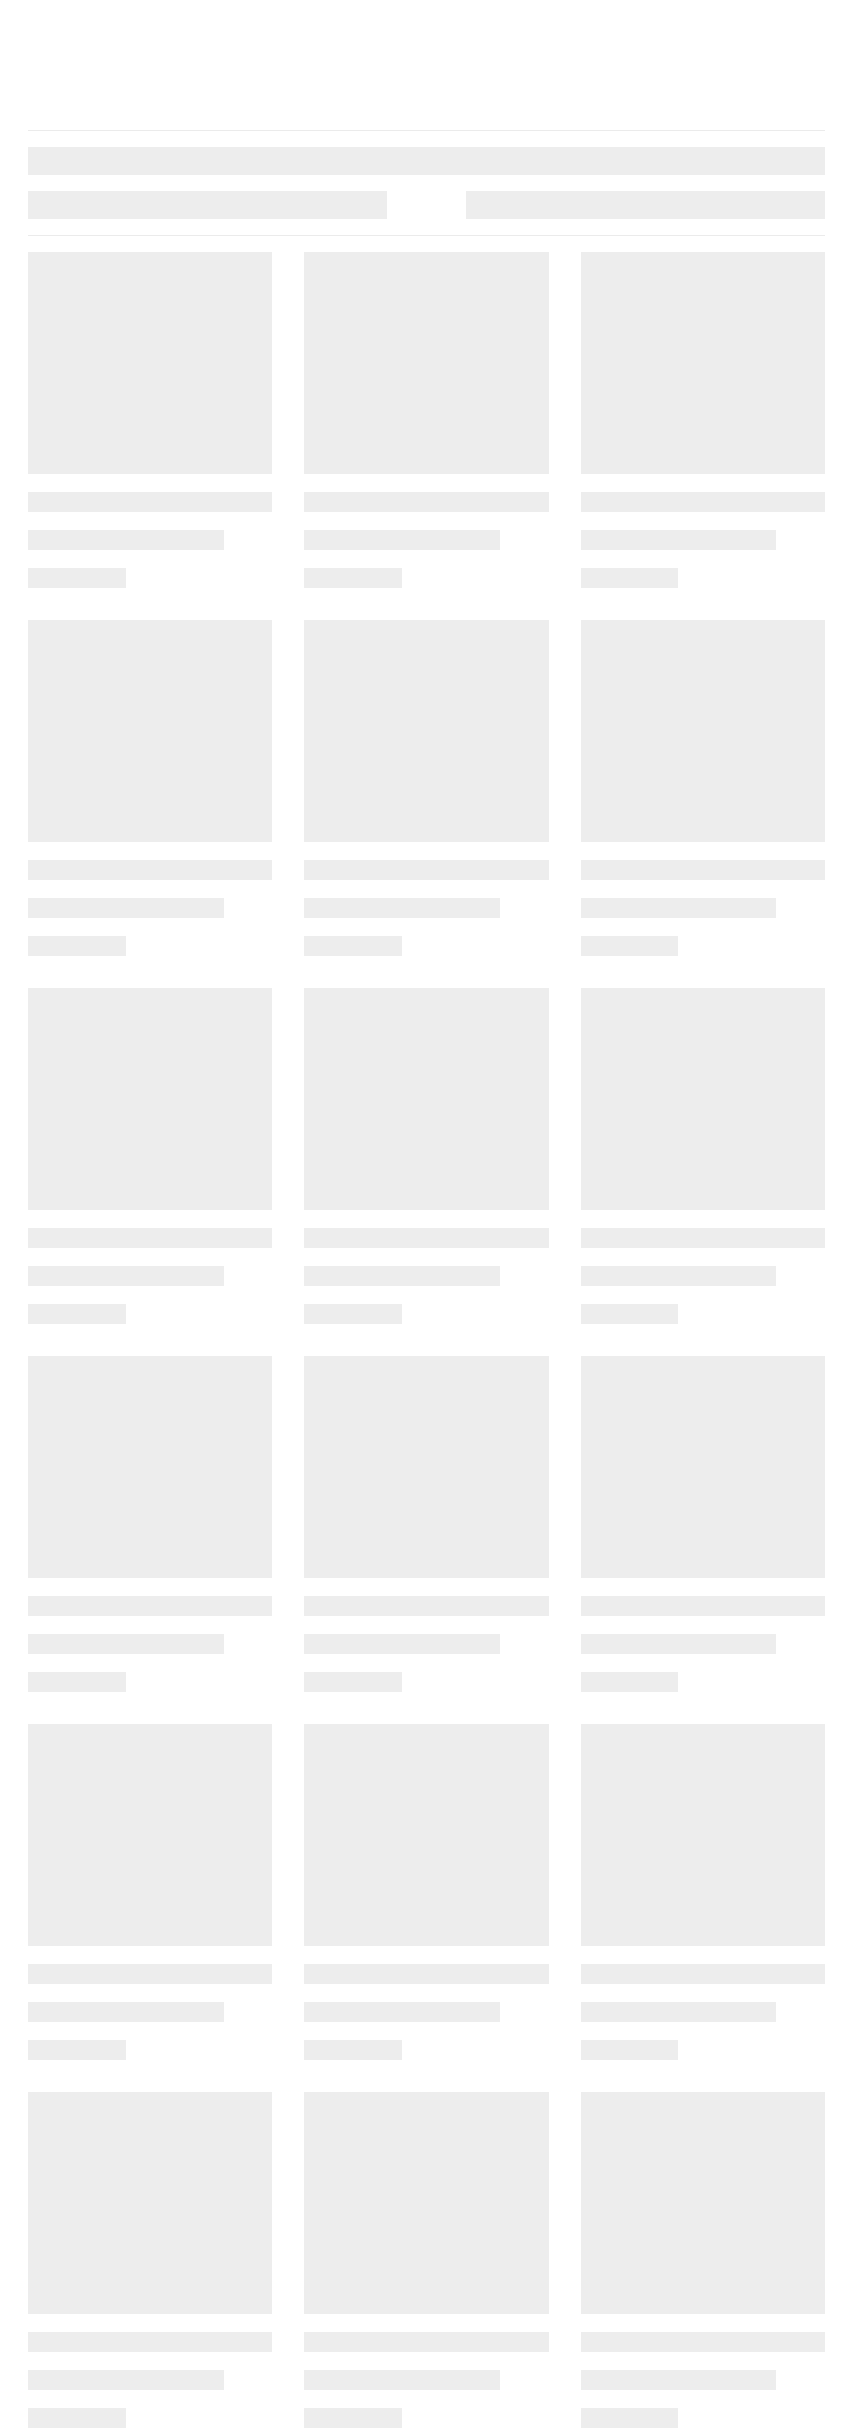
<svg xmlns="http://www.w3.org/2000/svg" width="853" height="2433" viewBox="0 0 853 2433">
  <rect width="100%" height="100%" fill="#fff"/>
  <rect x="28" y="130" width="797" height="1" fill="#ebebeb"/>
  <rect x="28" y="235" width="797" height="1" fill="#ebebeb"/>
  <rect x="28" y="147" width="797" height="28" fill="#ededed"/>
  <rect x="28" y="191" width="359" height="28" fill="#ededed"/>
  <rect x="466" y="191" width="359" height="28" fill="#ededed"/>
  <rect x="28" y="252" width="244" height="222" fill="#ededed"/>
  <rect x="28" y="492" width="244" height="20" fill="#ededed"/>
  <rect x="28" y="530" width="196" height="20" fill="#ededed"/>
  <rect x="28" y="568" width="98" height="20" fill="#ededed"/>
  <rect x="304" y="252" width="245" height="222" fill="#ededed"/>
  <rect x="304" y="492" width="245" height="20" fill="#ededed"/>
  <rect x="304" y="530" width="196" height="20" fill="#ededed"/>
  <rect x="304" y="568" width="98" height="20" fill="#ededed"/>
  <rect x="581" y="252" width="244" height="222" fill="#ededed"/>
  <rect x="581" y="492" width="244" height="20" fill="#ededed"/>
  <rect x="581" y="530" width="195" height="20" fill="#ededed"/>
  <rect x="581" y="568" width="97" height="20" fill="#ededed"/>
  <rect x="28" y="620" width="244" height="222" fill="#ededed"/>
  <rect x="28" y="860" width="244" height="20" fill="#ededed"/>
  <rect x="28" y="898" width="196" height="20" fill="#ededed"/>
  <rect x="28" y="936" width="98" height="20" fill="#ededed"/>
  <rect x="304" y="620" width="245" height="222" fill="#ededed"/>
  <rect x="304" y="860" width="245" height="20" fill="#ededed"/>
  <rect x="304" y="898" width="196" height="20" fill="#ededed"/>
  <rect x="304" y="936" width="98" height="20" fill="#ededed"/>
  <rect x="581" y="620" width="244" height="222" fill="#ededed"/>
  <rect x="581" y="860" width="244" height="20" fill="#ededed"/>
  <rect x="581" y="898" width="195" height="20" fill="#ededed"/>
  <rect x="581" y="936" width="97" height="20" fill="#ededed"/>
  <rect x="28" y="988" width="244" height="222" fill="#ededed"/>
  <rect x="28" y="1228" width="244" height="20" fill="#ededed"/>
  <rect x="28" y="1266" width="196" height="20" fill="#ededed"/>
  <rect x="28" y="1304" width="98" height="20" fill="#ededed"/>
  <rect x="304" y="988" width="245" height="222" fill="#ededed"/>
  <rect x="304" y="1228" width="245" height="20" fill="#ededed"/>
  <rect x="304" y="1266" width="196" height="20" fill="#ededed"/>
  <rect x="304" y="1304" width="98" height="20" fill="#ededed"/>
  <rect x="581" y="988" width="244" height="222" fill="#ededed"/>
  <rect x="581" y="1228" width="244" height="20" fill="#ededed"/>
  <rect x="581" y="1266" width="195" height="20" fill="#ededed"/>
  <rect x="581" y="1304" width="97" height="20" fill="#ededed"/>
  <rect x="28" y="1356" width="244" height="222" fill="#ededed"/>
  <rect x="28" y="1596" width="244" height="20" fill="#ededed"/>
  <rect x="28" y="1634" width="196" height="20" fill="#ededed"/>
  <rect x="28" y="1672" width="98" height="20" fill="#ededed"/>
  <rect x="304" y="1356" width="245" height="222" fill="#ededed"/>
  <rect x="304" y="1596" width="245" height="20" fill="#ededed"/>
  <rect x="304" y="1634" width="196" height="20" fill="#ededed"/>
  <rect x="304" y="1672" width="98" height="20" fill="#ededed"/>
  <rect x="581" y="1356" width="244" height="222" fill="#ededed"/>
  <rect x="581" y="1596" width="244" height="20" fill="#ededed"/>
  <rect x="581" y="1634" width="195" height="20" fill="#ededed"/>
  <rect x="581" y="1672" width="97" height="20" fill="#ededed"/>
  <rect x="28" y="1724" width="244" height="222" fill="#ededed"/>
  <rect x="28" y="1964" width="244" height="20" fill="#ededed"/>
  <rect x="28" y="2002" width="196" height="20" fill="#ededed"/>
  <rect x="28" y="2040" width="98" height="20" fill="#ededed"/>
  <rect x="304" y="1724" width="245" height="222" fill="#ededed"/>
  <rect x="304" y="1964" width="245" height="20" fill="#ededed"/>
  <rect x="304" y="2002" width="196" height="20" fill="#ededed"/>
  <rect x="304" y="2040" width="98" height="20" fill="#ededed"/>
  <rect x="581" y="1724" width="244" height="222" fill="#ededed"/>
  <rect x="581" y="1964" width="244" height="20" fill="#ededed"/>
  <rect x="581" y="2002" width="195" height="20" fill="#ededed"/>
  <rect x="581" y="2040" width="97" height="20" fill="#ededed"/>
  <rect x="28" y="2092" width="244" height="222" fill="#ededed"/>
  <rect x="28" y="2332" width="244" height="20" fill="#ededed"/>
  <rect x="28" y="2370" width="196" height="20" fill="#ededed"/>
  <rect x="28" y="2408" width="98" height="20" fill="#ededed"/>
  <rect x="304" y="2092" width="245" height="222" fill="#ededed"/>
  <rect x="304" y="2332" width="245" height="20" fill="#ededed"/>
  <rect x="304" y="2370" width="196" height="20" fill="#ededed"/>
  <rect x="304" y="2408" width="98" height="20" fill="#ededed"/>
  <rect x="581" y="2092" width="244" height="222" fill="#ededed"/>
  <rect x="581" y="2332" width="244" height="20" fill="#ededed"/>
  <rect x="581" y="2370" width="195" height="20" fill="#ededed"/>
  <rect x="581" y="2408" width="97" height="20" fill="#ededed"/>
</svg>
